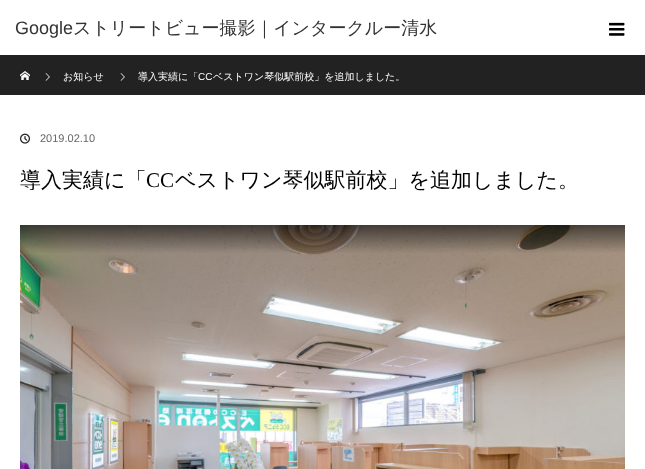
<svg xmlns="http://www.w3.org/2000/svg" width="645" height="469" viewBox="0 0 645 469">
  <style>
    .t1 { font: 18px Liberation Sans; fill: #333; }
    .t2 { font: 500 18px WenQuanYi Zen Hei; fill: #333; }
    .t3 { font: 500 10px WenQuanYi Zen Hei; fill: #fff; }
    .t4 { font: 10px Liberation Sans; fill: #fff; }
    .t5 { font: 11px Liberation Sans; fill: #666; }
    .t6 { font: 500 21px WenQuanYi Zen Hei; fill: #000; }
    .t7 { font: 21px Liberation Serif; fill: #000; }
  </style>
  <rect width="100%" height="100%" fill="#fff"/>
  <text x="15" y="34" class="t1">Google</text>
  <text x="73" y="34" class="t2">ストリートビュー撮影｜インタークルー清水</text>
  <image x="609" y="22" width="16" height="14" href="images/1.png"/>
  <rect x="0" y="55" width="645" height="40" fill="#222"/>
  <image x="20" y="71" width="10" height="9" href="images/2.png"/>
  <image x="45" y="73" width="5" height="8" href="images/3.png"/>
  <text x="63" y="80" class="t3">お知らせ</text>
  <image x="120" y="73" width="5" height="8" href="images/3.png"/>
  <text x="138" y="80" class="t3">導入実績に「</text>
  <text x="198" y="80" class="t4">CC</text>
  <text x="213" y="80" class="t3">ベストワン琴似駅前校」を追加しました。</text>
  <image x="20" y="133" width="10" height="11" href="images/4.png"/>
  <text x="40" y="142" class="t5">2019.02.10</text>
  <text x="20" y="187" class="t6">導入実績に「</text>
  <text x="146" y="187" class="t7">CC</text>
  <text x="175" y="187" class="t6">ベストワン琴似駅前校」を追加しました。</text>
  <image x="20" y="225" width="605" height="244" href="images/5.png"/>
</svg>
